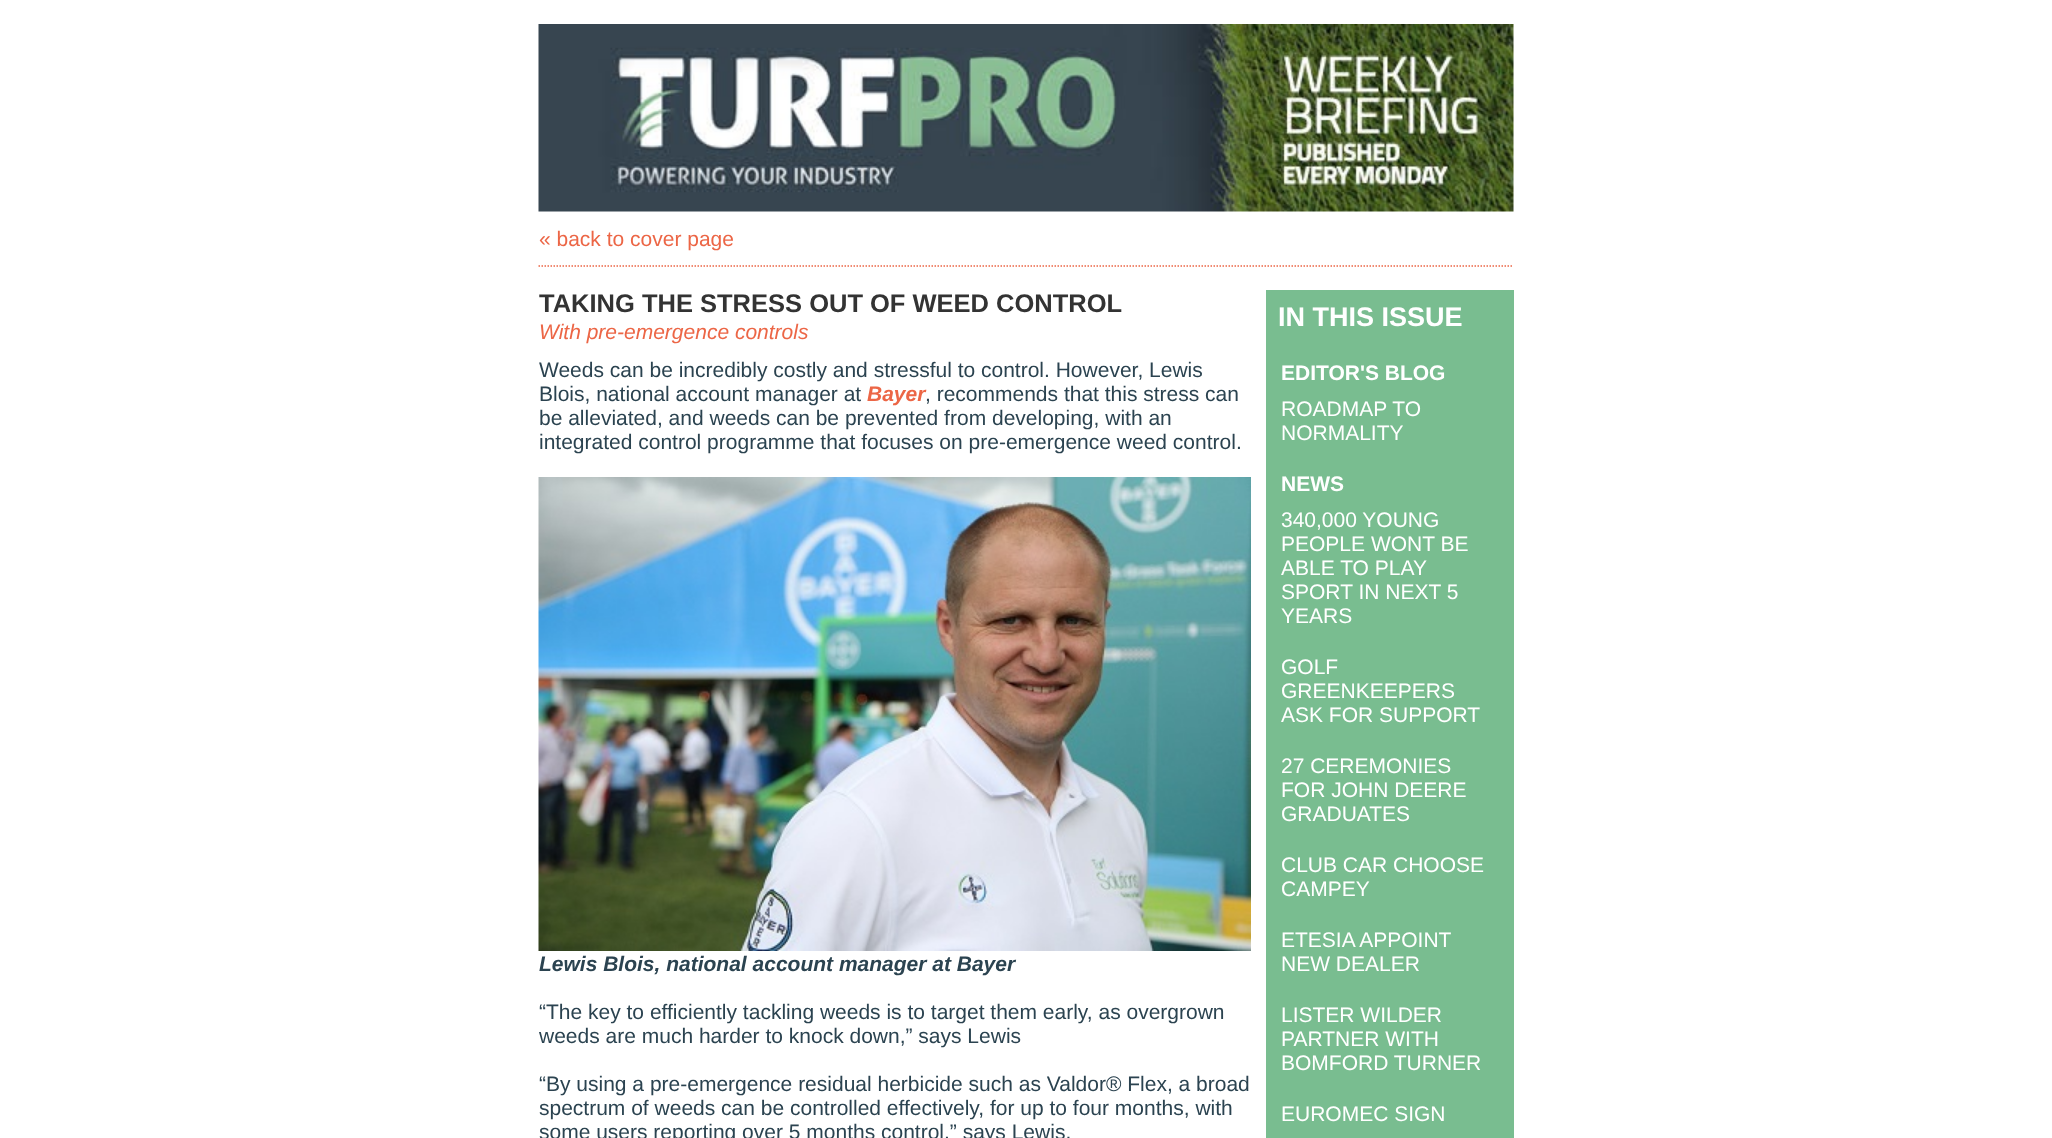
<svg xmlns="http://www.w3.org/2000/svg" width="2052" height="1138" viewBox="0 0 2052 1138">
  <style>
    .t1 { font: 21px Liberation Sans; fill: #ec6646; }
    .t2 { font: bold 25.5px Liberation Sans; fill: #333; }
    .t3 { font: italic 21px Liberation Sans; fill: #ec6646; }
    .t4 { font: 21px Liberation Sans; fill: #2b4350; }
    .t5 { font: italic bold 21px Liberation Sans; fill: #ec6646; }
    .t6 { font: italic bold 21px Liberation Sans; fill: #2b4350; }
    .t7 { font: bold 27px Liberation Sans; fill: #fff; }
    .t8 { font: bold 21px Liberation Sans; fill: #fff; }
    .t9 { font: 21px Liberation Sans; fill: #fff; }
  </style>
  <rect width="100%" height="100%" fill="#fff"/>
  <image x="538" y="24" width="976" height="188" href="images/1.png"/>
  <path d="M538.5 266H1513.5" fill="none" stroke="#ec6646" stroke-width="1.5" stroke-dasharray="1.5 1.5"/>
  <text x="539" y="246" class="t1">« back to cover page</text>
  <text x="539" y="312" class="t2">TAKING THE STRESS OUT OF WEED CONTROL</text>
  <text x="539" y="339" class="t3">With pre-emergence controls</text>
  <text x="539" y="377" class="t4">Weeds can be incredibly costly and stressful to control. However, Lewis</text>
  <text x="539" y="401" class="t4">Blois, national account manager at</text>
  <text x="867" y="401" class="t5">Bayer</text>
  <text x="925" y="401" class="t4">, recommends that this stress can</text>
  <text x="539" y="425" class="t4">be alleviated, and weeds can be prevented from developing, with an</text>
  <text x="539" y="449" class="t4">integrated control programme that focuses on pre-emergence weed control.</text>
  <image x="538" y="477" width="713" height="474" href="images/2.png"/>
  <text x="539" y="971" class="t6">Lewis Blois, national account manager at Bayer</text>
  <text x="539" y="1019" class="t4">“The key to efficiently tackling weeds is to target them early, as overgrown</text>
  <text x="539" y="1043" class="t4">weeds are much harder to knock down,” says Lewis</text>
  <text x="539" y="1091" class="t4">“By using a pre-emergence residual herbicide such as Valdor® Flex, a broad</text>
  <text x="539" y="1115" class="t4">spectrum of weeds can be controlled effectively, for up to four months, with</text>
  <text x="539" y="1139" class="t4">some users reporting over 5 months control,” says Lewis.</text>
  <rect x="1266" y="290" width="248" height="848" fill="#79bd90"/>
  <text x="1278" y="326" class="t7">IN THIS ISSUE</text>
  <text x="1281" y="380" class="t8">EDITOR'S BLOG</text>
  <text x="1281" y="416" class="t9">ROADMAP TO</text>
  <text x="1281" y="440" class="t9">NORMALITY</text>
  <text x="1281" y="491" class="t8">NEWS</text>
  <text x="1281" y="527" class="t9">340,000 YOUNG</text>
  <text x="1281" y="551" class="t9">PEOPLE WONT BE</text>
  <text x="1281" y="575" class="t9">ABLE TO PLAY</text>
  <text x="1281" y="599" class="t9">SPORT IN NEXT 5</text>
  <text x="1281" y="623" class="t9">YEARS</text>
  <text x="1281" y="674" class="t9">GOLF</text>
  <text x="1281" y="698" class="t9">GREENKEEPERS</text>
  <text x="1281" y="722" class="t9">ASK FOR SUPPORT</text>
  <text x="1281" y="773" class="t9">27 CEREMONIES</text>
  <text x="1281" y="797" class="t9">FOR JOHN DEERE</text>
  <text x="1281" y="821" class="t9">GRADUATES</text>
  <text x="1281" y="872" class="t9">CLUB CAR CHOOSE</text>
  <text x="1281" y="896" class="t9">CAMPEY</text>
  <text x="1281" y="947" class="t9">ETESIA APPOINT</text>
  <text x="1281" y="971" class="t9">NEW DEALER</text>
  <text x="1281" y="1022" class="t9">LISTER WILDER</text>
  <text x="1281" y="1046" class="t9">PARTNER WITH</text>
  <text x="1281" y="1070" class="t9">BOMFORD TURNER</text>
  <text x="1281" y="1121" class="t9">EUROMEC SIGN</text>
</svg>
